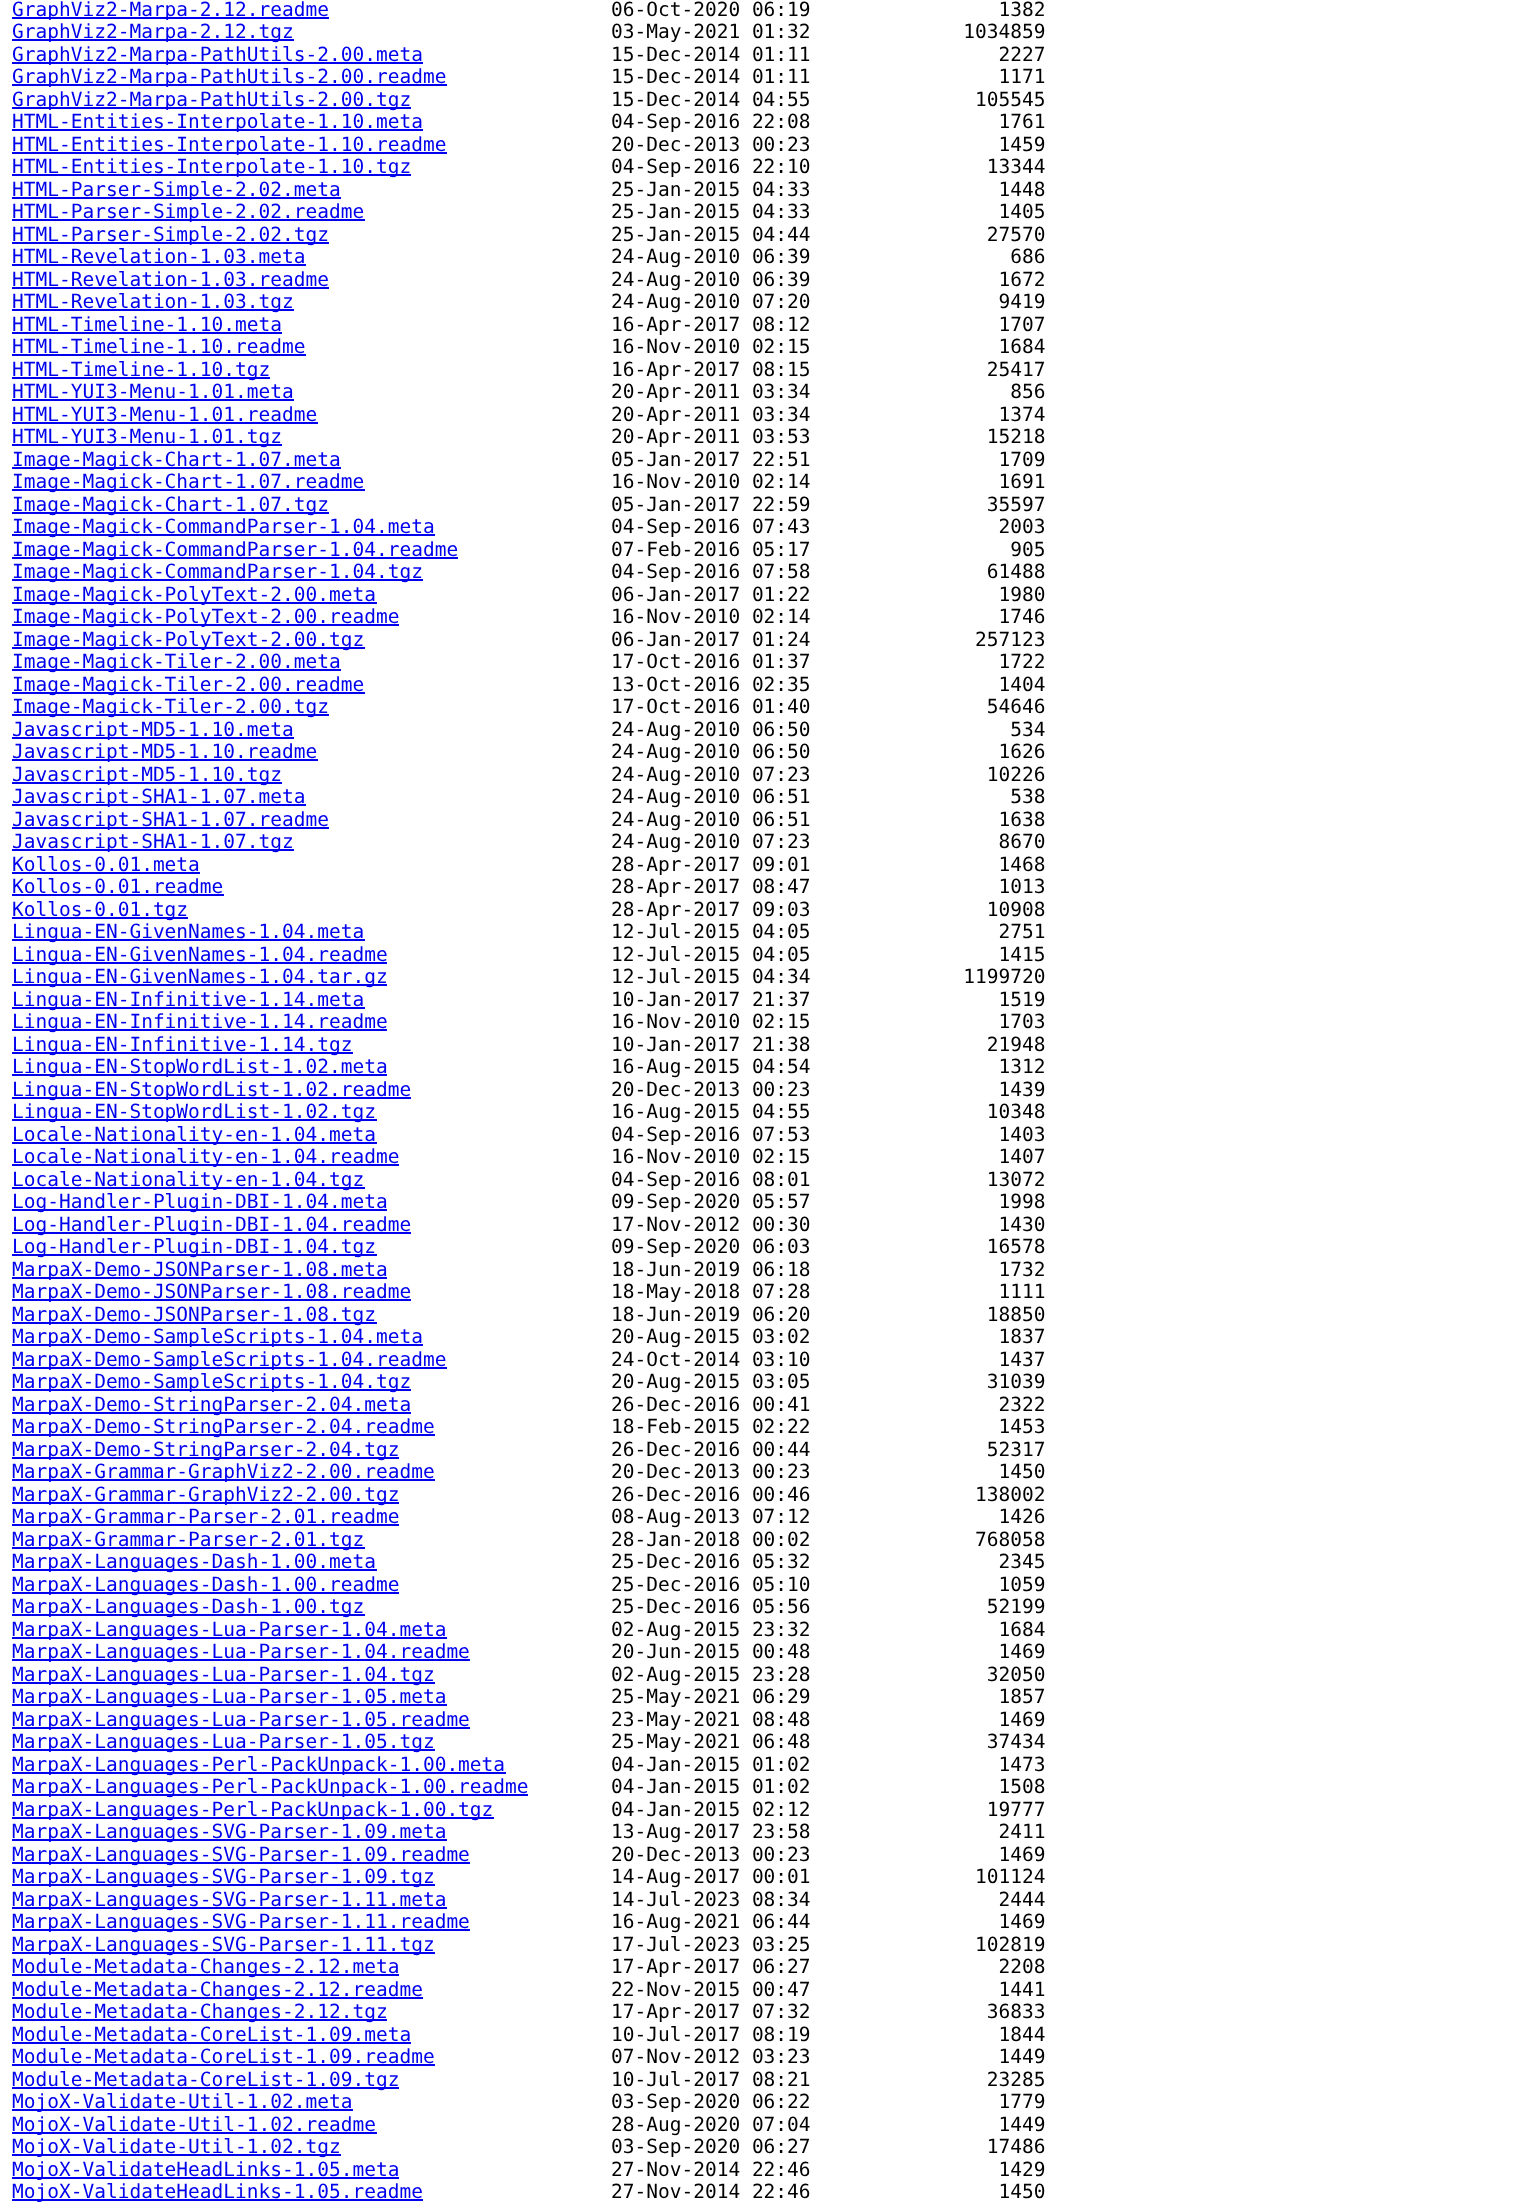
<svg xmlns="http://www.w3.org/2000/svg" width="1524" height="2210" viewBox="0 0 1524 2210">
  <style>
    .t1 { font: 19.5px DejaVu Sans Mono; fill: #00e; }
    .t2 { font: 19.5px DejaVu Sans Mono; fill: #000; }
  </style>
  <rect width="100%" height="100%" fill="#fff"/>
  <rect x="12" y="17" width="317" height="2" fill="#00e"/>
  <text x="12" y="16" class="t1">GraphViz2-Marpa-2.12.readme</text>
  <text x="611" y="16" class="t2" xml:space="preserve">06-Oct-2020 06:19                1382</text>
  <rect x="12" y="39" width="282" height="2" fill="#00e"/>
  <text x="12" y="38" class="t1">GraphViz2-Marpa-2.12.tgz</text>
  <text x="611" y="38" class="t2" xml:space="preserve">03-May-2021 01:32             1034859</text>
  <rect x="12" y="62" width="411" height="2" fill="#00e"/>
  <text x="12" y="61" class="t1">GraphViz2-Marpa-PathUtils-2.00.meta</text>
  <text x="611" y="61" class="t2" xml:space="preserve">15-Dec-2014 01:11                2227</text>
  <rect x="12" y="84" width="435" height="2" fill="#00e"/>
  <text x="12" y="83" class="t1">GraphViz2-Marpa-PathUtils-2.00.readme</text>
  <text x="611" y="83" class="t2" xml:space="preserve">15-Dec-2014 01:11                1171</text>
  <rect x="12" y="107" width="399" height="2" fill="#00e"/>
  <text x="12" y="106" class="t1">GraphViz2-Marpa-PathUtils-2.00.tgz</text>
  <text x="611" y="106" class="t2" xml:space="preserve">15-Dec-2014 04:55              105545</text>
  <rect x="12" y="129" width="411" height="2" fill="#00e"/>
  <text x="12" y="128" class="t1">HTML-Entities-Interpolate-1.10.meta</text>
  <text x="611" y="128" class="t2" xml:space="preserve">04-Sep-2016 22:08                1761</text>
  <rect x="12" y="152" width="435" height="2" fill="#00e"/>
  <text x="12" y="151" class="t1">HTML-Entities-Interpolate-1.10.readme</text>
  <text x="611" y="151" class="t2" xml:space="preserve">20-Dec-2013 00:23                1459</text>
  <rect x="12" y="174" width="399" height="2" fill="#00e"/>
  <text x="12" y="173" class="t1">HTML-Entities-Interpolate-1.10.tgz</text>
  <text x="611" y="173" class="t2" xml:space="preserve">04-Sep-2016 22:10               13344</text>
  <rect x="12" y="197" width="329" height="2" fill="#00e"/>
  <text x="12" y="196" class="t1">HTML-Parser-Simple-2.02.meta</text>
  <text x="611" y="196" class="t2" xml:space="preserve">25-Jan-2015 04:33                1448</text>
  <rect x="12" y="219" width="353" height="2" fill="#00e"/>
  <text x="12" y="218" class="t1">HTML-Parser-Simple-2.02.readme</text>
  <text x="611" y="218" class="t2" xml:space="preserve">25-Jan-2015 04:33                1405</text>
  <rect x="12" y="242" width="317" height="2" fill="#00e"/>
  <text x="12" y="241" class="t1">HTML-Parser-Simple-2.02.tgz</text>
  <text x="611" y="241" class="t2" xml:space="preserve">25-Jan-2015 04:44               27570</text>
  <text x="12" y="263" class="t1">HTML-Revelation-1.03.meta</text>
  <rect x="12" y="264" width="294" height="2" fill="#00e"/>
  <text x="611" y="263" class="t2" xml:space="preserve">24-Aug-2010 06:39                 686</text>
  <text x="12" y="286" class="t1">HTML-Revelation-1.03.readme</text>
  <rect x="12" y="287" width="317" height="2" fill="#00e"/>
  <text x="611" y="286" class="t2" xml:space="preserve">24-Aug-2010 06:39                1672</text>
  <rect x="12" y="309" width="282" height="2" fill="#00e"/>
  <text x="12" y="308" class="t1">HTML-Revelation-1.03.tgz</text>
  <text x="611" y="308" class="t2" xml:space="preserve">24-Aug-2010 07:20                9419</text>
  <text x="12" y="331" class="t1">HTML-Timeline-1.10.meta</text>
  <rect x="12" y="332" width="270" height="2" fill="#00e"/>
  <text x="611" y="331" class="t2" xml:space="preserve">16-Apr-2017 08:12                1707</text>
  <text x="12" y="353" class="t1">HTML-Timeline-1.10.readme</text>
  <rect x="12" y="354" width="294" height="2" fill="#00e"/>
  <text x="611" y="353" class="t2" xml:space="preserve">16-Nov-2010 02:15                1684</text>
  <rect x="12" y="377" width="258" height="2" fill="#00e"/>
  <text x="12" y="376" class="t1">HTML-Timeline-1.10.tgz</text>
  <text x="611" y="376" class="t2" xml:space="preserve">16-Apr-2017 08:15               25417</text>
  <text x="12" y="398" class="t1">HTML-YUI3-Menu-1.01.meta</text>
  <rect x="12" y="399" width="282" height="2" fill="#00e"/>
  <text x="611" y="398" class="t2" xml:space="preserve">20-Apr-2011 03:34                 856</text>
  <text x="12" y="421" class="t1">HTML-YUI3-Menu-1.01.readme</text>
  <rect x="12" y="422" width="306" height="2" fill="#00e"/>
  <text x="611" y="421" class="t2" xml:space="preserve">20-Apr-2011 03:34                1374</text>
  <rect x="12" y="444" width="270" height="2" fill="#00e"/>
  <text x="12" y="443" class="t1">HTML-YUI3-Menu-1.01.tgz</text>
  <text x="611" y="443" class="t2" xml:space="preserve">20-Apr-2011 03:53               15218</text>
  <rect x="12" y="467" width="329" height="2" fill="#00e"/>
  <text x="12" y="466" class="t1">Image-Magick-Chart-1.07.meta</text>
  <text x="611" y="466" class="t2" xml:space="preserve">05-Jan-2017 22:51                1709</text>
  <rect x="12" y="489" width="353" height="2" fill="#00e"/>
  <text x="12" y="488" class="t1">Image-Magick-Chart-1.07.readme</text>
  <text x="611" y="488" class="t2" xml:space="preserve">16-Nov-2010 02:14                1691</text>
  <rect x="12" y="512" width="317" height="2" fill="#00e"/>
  <text x="12" y="511" class="t1">Image-Magick-Chart-1.07.tgz</text>
  <text x="611" y="511" class="t2" xml:space="preserve">05-Jan-2017 22:59               35597</text>
  <rect x="12" y="534" width="423" height="2" fill="#00e"/>
  <text x="12" y="533" class="t1">Image-Magick-CommandParser-1.04.meta</text>
  <text x="611" y="533" class="t2" xml:space="preserve">04-Sep-2016 07:43                2003</text>
  <rect x="12" y="557" width="446" height="2" fill="#00e"/>
  <text x="12" y="556" class="t1">Image-Magick-CommandParser-1.04.readme</text>
  <text x="611" y="556" class="t2" xml:space="preserve">07-Feb-2016 05:17                 905</text>
  <rect x="12" y="579" width="411" height="2" fill="#00e"/>
  <text x="12" y="578" class="t1">Image-Magick-CommandParser-1.04.tgz</text>
  <text x="611" y="578" class="t2" xml:space="preserve">04-Sep-2016 07:58               61488</text>
  <rect x="12" y="602" width="365" height="2" fill="#00e"/>
  <text x="12" y="601" class="t1">Image-Magick-PolyText-2.00.meta</text>
  <text x="611" y="601" class="t2" xml:space="preserve">06-Jan-2017 01:22                1980</text>
  <rect x="12" y="624" width="387" height="2" fill="#00e"/>
  <text x="12" y="623" class="t1">Image-Magick-PolyText-2.00.readme</text>
  <text x="611" y="623" class="t2" xml:space="preserve">16-Nov-2010 02:14                1746</text>
  <rect x="12" y="647" width="353" height="2" fill="#00e"/>
  <text x="12" y="646" class="t1">Image-Magick-PolyText-2.00.tgz</text>
  <text x="611" y="646" class="t2" xml:space="preserve">06-Jan-2017 01:24              257123</text>
  <rect x="12" y="669" width="329" height="2" fill="#00e"/>
  <text x="12" y="668" class="t1">Image-Magick-Tiler-2.00.meta</text>
  <text x="611" y="668" class="t2" xml:space="preserve">17-Oct-2016 01:37                1722</text>
  <rect x="12" y="692" width="353" height="2" fill="#00e"/>
  <text x="12" y="691" class="t1">Image-Magick-Tiler-2.00.readme</text>
  <text x="611" y="691" class="t2" xml:space="preserve">13-Oct-2016 02:35                1404</text>
  <rect x="12" y="714" width="317" height="2" fill="#00e"/>
  <text x="12" y="713" class="t1">Image-Magick-Tiler-2.00.tgz</text>
  <text x="611" y="713" class="t2" xml:space="preserve">17-Oct-2016 01:40               54646</text>
  <rect x="12" y="737" width="282" height="2" fill="#00e"/>
  <text x="12" y="736" class="t1">Javascript-MD5-1.10.meta</text>
  <text x="611" y="736" class="t2" xml:space="preserve">24-Aug-2010 06:50                 534</text>
  <rect x="12" y="759" width="306" height="2" fill="#00e"/>
  <text x="12" y="758" class="t1">Javascript-MD5-1.10.readme</text>
  <text x="611" y="758" class="t2" xml:space="preserve">24-Aug-2010 06:50                1626</text>
  <rect x="12" y="782" width="270" height="2" fill="#00e"/>
  <text x="12" y="781" class="t1">Javascript-MD5-1.10.tgz</text>
  <text x="611" y="781" class="t2" xml:space="preserve">24-Aug-2010 07:23               10226</text>
  <rect x="12" y="804" width="294" height="2" fill="#00e"/>
  <text x="12" y="803" class="t1">Javascript-SHA1-1.07.meta</text>
  <text x="611" y="803" class="t2" xml:space="preserve">24-Aug-2010 06:51                 538</text>
  <rect x="12" y="827" width="317" height="2" fill="#00e"/>
  <text x="12" y="826" class="t1">Javascript-SHA1-1.07.readme</text>
  <text x="611" y="826" class="t2" xml:space="preserve">24-Aug-2010 06:51                1638</text>
  <rect x="12" y="849" width="282" height="2" fill="#00e"/>
  <text x="12" y="848" class="t1">Javascript-SHA1-1.07.tgz</text>
  <text x="611" y="848" class="t2" xml:space="preserve">24-Aug-2010 07:23                8670</text>
  <text x="12" y="871" class="t1">Kollos-0.01.meta</text>
  <rect x="12" y="872" width="188" height="2" fill="#00e"/>
  <text x="611" y="871" class="t2" xml:space="preserve">28-Apr-2017 09:01                1468</text>
  <text x="12" y="893" class="t1">Kollos-0.01.readme</text>
  <rect x="12" y="894" width="212" height="2" fill="#00e"/>
  <text x="611" y="893" class="t2" xml:space="preserve">28-Apr-2017 08:47                1013</text>
  <rect x="12" y="917" width="176" height="2" fill="#00e"/>
  <text x="12" y="916" class="t1">Kollos-0.01.tgz</text>
  <text x="611" y="916" class="t2" xml:space="preserve">28-Apr-2017 09:03               10908</text>
  <rect x="12" y="939" width="353" height="2" fill="#00e"/>
  <text x="12" y="938" class="t1">Lingua-EN-GivenNames-1.04.meta</text>
  <text x="611" y="938" class="t2" xml:space="preserve">12-Jul-2015 04:05                2751</text>
  <rect x="12" y="962" width="375" height="2" fill="#00e"/>
  <text x="12" y="961" class="t1">Lingua-EN-GivenNames-1.04.readme</text>
  <text x="611" y="961" class="t2" xml:space="preserve">12-Jul-2015 04:05                1415</text>
  <rect x="12" y="984" width="375" height="2" fill="#00e"/>
  <text x="12" y="983" class="t1">Lingua-EN-GivenNames-1.04.tar.gz</text>
  <text x="611" y="983" class="t2" xml:space="preserve">12-Jul-2015 04:34             1199720</text>
  <rect x="12" y="1007" width="353" height="2" fill="#00e"/>
  <text x="12" y="1006" class="t1">Lingua-EN-Infinitive-1.14.meta</text>
  <text x="611" y="1006" class="t2" xml:space="preserve">10-Jan-2017 21:37                1519</text>
  <rect x="12" y="1029" width="375" height="2" fill="#00e"/>
  <text x="12" y="1028" class="t1">Lingua-EN-Infinitive-1.14.readme</text>
  <text x="611" y="1028" class="t2" xml:space="preserve">16-Nov-2010 02:15                1703</text>
  <rect x="12" y="1052" width="341" height="2" fill="#00e"/>
  <text x="12" y="1051" class="t1">Lingua-EN-Infinitive-1.14.tgz</text>
  <text x="611" y="1051" class="t2" xml:space="preserve">10-Jan-2017 21:38               21948</text>
  <rect x="12" y="1074" width="375" height="2" fill="#00e"/>
  <text x="12" y="1073" class="t1">Lingua-EN-StopWordList-1.02.meta</text>
  <text x="611" y="1073" class="t2" xml:space="preserve">16-Aug-2015 04:54                1312</text>
  <rect x="12" y="1097" width="399" height="2" fill="#00e"/>
  <text x="12" y="1096" class="t1">Lingua-EN-StopWordList-1.02.readme</text>
  <text x="611" y="1096" class="t2" xml:space="preserve">20-Dec-2013 00:23                1439</text>
  <rect x="12" y="1119" width="365" height="2" fill="#00e"/>
  <text x="12" y="1118" class="t1">Lingua-EN-StopWordList-1.02.tgz</text>
  <text x="611" y="1118" class="t2" xml:space="preserve">16-Aug-2015 04:55               10348</text>
  <rect x="12" y="1142" width="365" height="2" fill="#00e"/>
  <text x="12" y="1141" class="t1">Locale-Nationality-en-1.04.meta</text>
  <text x="611" y="1141" class="t2" xml:space="preserve">04-Sep-2016 07:53                1403</text>
  <rect x="12" y="1164" width="387" height="2" fill="#00e"/>
  <text x="12" y="1163" class="t1">Locale-Nationality-en-1.04.readme</text>
  <text x="611" y="1163" class="t2" xml:space="preserve">16-Nov-2010 02:15                1407</text>
  <rect x="12" y="1187" width="353" height="2" fill="#00e"/>
  <text x="12" y="1186" class="t1">Locale-Nationality-en-1.04.tgz</text>
  <text x="611" y="1186" class="t2" xml:space="preserve">04-Sep-2016 08:01               13072</text>
  <rect x="12" y="1209" width="375" height="2" fill="#00e"/>
  <text x="12" y="1208" class="t1">Log-Handler-Plugin-DBI-1.04.meta</text>
  <text x="611" y="1208" class="t2" xml:space="preserve">09-Sep-2020 05:57                1998</text>
  <rect x="12" y="1232" width="399" height="2" fill="#00e"/>
  <text x="12" y="1231" class="t1">Log-Handler-Plugin-DBI-1.04.readme</text>
  <text x="611" y="1231" class="t2" xml:space="preserve">17-Nov-2012 00:30                1430</text>
  <rect x="12" y="1254" width="365" height="2" fill="#00e"/>
  <text x="12" y="1253" class="t1">Log-Handler-Plugin-DBI-1.04.tgz</text>
  <text x="611" y="1253" class="t2" xml:space="preserve">09-Sep-2020 06:03               16578</text>
  <rect x="12" y="1277" width="375" height="2" fill="#00e"/>
  <text x="12" y="1276" class="t1">MarpaX-Demo-JSONParser-1.08.meta</text>
  <text x="611" y="1276" class="t2" xml:space="preserve">18-Jun-2019 06:18                1732</text>
  <rect x="12" y="1299" width="399" height="2" fill="#00e"/>
  <text x="12" y="1298" class="t1">MarpaX-Demo-JSONParser-1.08.readme</text>
  <text x="611" y="1298" class="t2" xml:space="preserve">18-May-2018 07:28                1111</text>
  <rect x="12" y="1322" width="365" height="2" fill="#00e"/>
  <text x="12" y="1321" class="t1">MarpaX-Demo-JSONParser-1.08.tgz</text>
  <text x="611" y="1321" class="t2" xml:space="preserve">18-Jun-2019 06:20               18850</text>
  <rect x="12" y="1344" width="411" height="2" fill="#00e"/>
  <text x="12" y="1343" class="t1">MarpaX-Demo-SampleScripts-1.04.meta</text>
  <text x="611" y="1343" class="t2" xml:space="preserve">20-Aug-2015 03:02                1837</text>
  <rect x="12" y="1367" width="435" height="2" fill="#00e"/>
  <text x="12" y="1366" class="t1">MarpaX-Demo-SampleScripts-1.04.readme</text>
  <text x="611" y="1366" class="t2" xml:space="preserve">24-Oct-2014 03:10                1437</text>
  <rect x="12" y="1389" width="399" height="2" fill="#00e"/>
  <text x="12" y="1388" class="t1">MarpaX-Demo-SampleScripts-1.04.tgz</text>
  <text x="611" y="1388" class="t2" xml:space="preserve">20-Aug-2015 03:05               31039</text>
  <rect x="12" y="1412" width="399" height="2" fill="#00e"/>
  <text x="12" y="1411" class="t1">MarpaX-Demo-StringParser-2.04.meta</text>
  <text x="611" y="1411" class="t2" xml:space="preserve">26-Dec-2016 00:41                2322</text>
  <rect x="12" y="1434" width="423" height="2" fill="#00e"/>
  <text x="12" y="1433" class="t1">MarpaX-Demo-StringParser-2.04.readme</text>
  <text x="611" y="1433" class="t2" xml:space="preserve">18-Feb-2015 02:22                1453</text>
  <rect x="12" y="1457" width="387" height="2" fill="#00e"/>
  <text x="12" y="1456" class="t1">MarpaX-Demo-StringParser-2.04.tgz</text>
  <text x="611" y="1456" class="t2" xml:space="preserve">26-Dec-2016 00:44               52317</text>
  <rect x="12" y="1479" width="423" height="2" fill="#00e"/>
  <text x="12" y="1478" class="t1">MarpaX-Grammar-GraphViz2-2.00.readme</text>
  <text x="611" y="1478" class="t2" xml:space="preserve">20-Dec-2013 00:23                1450</text>
  <rect x="12" y="1502" width="387" height="2" fill="#00e"/>
  <text x="12" y="1501" class="t1">MarpaX-Grammar-GraphViz2-2.00.tgz</text>
  <text x="611" y="1501" class="t2" xml:space="preserve">26-Dec-2016 00:46              138002</text>
  <rect x="12" y="1524" width="387" height="2" fill="#00e"/>
  <text x="12" y="1523" class="t1">MarpaX-Grammar-Parser-2.01.readme</text>
  <text x="611" y="1523" class="t2" xml:space="preserve">08-Aug-2013 07:12                1426</text>
  <rect x="12" y="1547" width="353" height="2" fill="#00e"/>
  <text x="12" y="1546" class="t1">MarpaX-Grammar-Parser-2.01.tgz</text>
  <text x="611" y="1546" class="t2" xml:space="preserve">28-Jan-2018 00:02              768058</text>
  <rect x="12" y="1569" width="365" height="2" fill="#00e"/>
  <text x="12" y="1568" class="t1">MarpaX-Languages-Dash-1.00.meta</text>
  <text x="611" y="1568" class="t2" xml:space="preserve">25-Dec-2016 05:32                2345</text>
  <rect x="12" y="1592" width="387" height="2" fill="#00e"/>
  <text x="12" y="1591" class="t1">MarpaX-Languages-Dash-1.00.readme</text>
  <text x="611" y="1591" class="t2" xml:space="preserve">25-Dec-2016 05:10                1059</text>
  <rect x="12" y="1614" width="353" height="2" fill="#00e"/>
  <text x="12" y="1613" class="t1">MarpaX-Languages-Dash-1.00.tgz</text>
  <text x="611" y="1613" class="t2" xml:space="preserve">25-Dec-2016 05:56               52199</text>
  <rect x="12" y="1637" width="435" height="2" fill="#00e"/>
  <text x="12" y="1636" class="t1">MarpaX-Languages-Lua-Parser-1.04.meta</text>
  <text x="611" y="1636" class="t2" xml:space="preserve">02-Aug-2015 23:32                1684</text>
  <rect x="12" y="1659" width="458" height="2" fill="#00e"/>
  <text x="12" y="1658" class="t1">MarpaX-Languages-Lua-Parser-1.04.readme</text>
  <text x="611" y="1658" class="t2" xml:space="preserve">20-Jun-2015 00:48                1469</text>
  <rect x="12" y="1682" width="423" height="2" fill="#00e"/>
  <text x="12" y="1681" class="t1">MarpaX-Languages-Lua-Parser-1.04.tgz</text>
  <text x="611" y="1681" class="t2" xml:space="preserve">02-Aug-2015 23:28               32050</text>
  <rect x="12" y="1704" width="435" height="2" fill="#00e"/>
  <text x="12" y="1703" class="t1">MarpaX-Languages-Lua-Parser-1.05.meta</text>
  <text x="611" y="1703" class="t2" xml:space="preserve">25-May-2021 06:29                1857</text>
  <rect x="12" y="1727" width="458" height="2" fill="#00e"/>
  <text x="12" y="1726" class="t1">MarpaX-Languages-Lua-Parser-1.05.readme</text>
  <text x="611" y="1726" class="t2" xml:space="preserve">23-May-2021 08:48                1469</text>
  <rect x="12" y="1749" width="423" height="2" fill="#00e"/>
  <text x="12" y="1748" class="t1">MarpaX-Languages-Lua-Parser-1.05.tgz</text>
  <text x="611" y="1748" class="t2" xml:space="preserve">25-May-2021 06:48               37434</text>
  <rect x="12" y="1772" width="494" height="2" fill="#00e"/>
  <text x="12" y="1771" class="t1">MarpaX-Languages-Perl-PackUnpack-1.00.meta</text>
  <text x="611" y="1771" class="t2" xml:space="preserve">04-Jan-2015 01:02                1473</text>
  <rect x="12" y="1794" width="516" height="2" fill="#00e"/>
  <text x="12" y="1793" class="t1">MarpaX-Languages-Perl-PackUnpack-1.00.readme</text>
  <text x="611" y="1793" class="t2" xml:space="preserve">04-Jan-2015 01:02                1508</text>
  <rect x="12" y="1817" width="482" height="2" fill="#00e"/>
  <text x="12" y="1816" class="t1">MarpaX-Languages-Perl-PackUnpack-1.00.tgz</text>
  <text x="611" y="1816" class="t2" xml:space="preserve">04-Jan-2015 02:12               19777</text>
  <rect x="12" y="1839" width="435" height="2" fill="#00e"/>
  <text x="12" y="1838" class="t1">MarpaX-Languages-SVG-Parser-1.09.meta</text>
  <text x="611" y="1838" class="t2" xml:space="preserve">13-Aug-2017 23:58                2411</text>
  <rect x="12" y="1862" width="458" height="2" fill="#00e"/>
  <text x="12" y="1861" class="t1">MarpaX-Languages-SVG-Parser-1.09.readme</text>
  <text x="611" y="1861" class="t2" xml:space="preserve">20-Dec-2013 00:23                1469</text>
  <rect x="12" y="1884" width="423" height="2" fill="#00e"/>
  <text x="12" y="1883" class="t1">MarpaX-Languages-SVG-Parser-1.09.tgz</text>
  <text x="611" y="1883" class="t2" xml:space="preserve">14-Aug-2017 00:01              101124</text>
  <rect x="12" y="1907" width="435" height="2" fill="#00e"/>
  <text x="12" y="1906" class="t1">MarpaX-Languages-SVG-Parser-1.11.meta</text>
  <text x="611" y="1906" class="t2" xml:space="preserve">14-Jul-2023 08:34                2444</text>
  <rect x="12" y="1929" width="458" height="2" fill="#00e"/>
  <text x="12" y="1928" class="t1">MarpaX-Languages-SVG-Parser-1.11.readme</text>
  <text x="611" y="1928" class="t2" xml:space="preserve">16-Aug-2021 06:44                1469</text>
  <rect x="12" y="1952" width="423" height="2" fill="#00e"/>
  <text x="12" y="1951" class="t1">MarpaX-Languages-SVG-Parser-1.11.tgz</text>
  <text x="611" y="1951" class="t2" xml:space="preserve">17-Jul-2023 03:25              102819</text>
  <rect x="12" y="1974" width="387" height="2" fill="#00e"/>
  <text x="12" y="1973" class="t1">Module-Metadata-Changes-2.12.meta</text>
  <text x="611" y="1973" class="t2" xml:space="preserve">17-Apr-2017 06:27                2208</text>
  <rect x="12" y="1997" width="411" height="2" fill="#00e"/>
  <text x="12" y="1996" class="t1">Module-Metadata-Changes-2.12.readme</text>
  <text x="611" y="1996" class="t2" xml:space="preserve">22-Nov-2015 00:47                1441</text>
  <rect x="12" y="2019" width="375" height="2" fill="#00e"/>
  <text x="12" y="2018" class="t1">Module-Metadata-Changes-2.12.tgz</text>
  <text x="611" y="2018" class="t2" xml:space="preserve">17-Apr-2017 07:32               36833</text>
  <text x="12" y="2041" class="t1">Module-Metadata-CoreList-1.09.meta</text>
  <rect x="12" y="2042" width="399" height="2" fill="#00e"/>
  <text x="611" y="2041" class="t2" xml:space="preserve">10-Jul-2017 08:19                1844</text>
  <text x="12" y="2063" class="t1">Module-Metadata-CoreList-1.09.readme</text>
  <rect x="12" y="2064" width="423" height="2" fill="#00e"/>
  <text x="611" y="2063" class="t2" xml:space="preserve">07-Nov-2012 03:23                1449</text>
  <rect x="12" y="2087" width="387" height="2" fill="#00e"/>
  <text x="12" y="2086" class="t1">Module-Metadata-CoreList-1.09.tgz</text>
  <text x="611" y="2086" class="t2" xml:space="preserve">10-Jul-2017 08:21               23285</text>
  <rect x="12" y="2109" width="341" height="2" fill="#00e"/>
  <text x="12" y="2108" class="t1">MojoX-Validate-Util-1.02.meta</text>
  <text x="611" y="2108" class="t2" xml:space="preserve">03-Sep-2020 06:22                1779</text>
  <rect x="12" y="2132" width="365" height="2" fill="#00e"/>
  <text x="12" y="2131" class="t1">MojoX-Validate-Util-1.02.readme</text>
  <text x="611" y="2131" class="t2" xml:space="preserve">28-Aug-2020 07:04                1449</text>
  <rect x="12" y="2154" width="329" height="2" fill="#00e"/>
  <text x="12" y="2153" class="t1">MojoX-Validate-Util-1.02.tgz</text>
  <text x="611" y="2153" class="t2" xml:space="preserve">03-Sep-2020 06:27               17486</text>
  <rect x="12" y="2177" width="387" height="2" fill="#00e"/>
  <text x="12" y="2176" class="t1">MojoX-ValidateHeadLinks-1.05.meta</text>
  <text x="611" y="2176" class="t2" xml:space="preserve">27-Nov-2014 22:46                1429</text>
  <rect x="12" y="2199" width="411" height="2" fill="#00e"/>
  <text x="12" y="2198" class="t1">MojoX-ValidateHeadLinks-1.05.readme</text>
  <text x="611" y="2198" class="t2" xml:space="preserve">27-Nov-2014 22:46                1450</text>
</svg>
